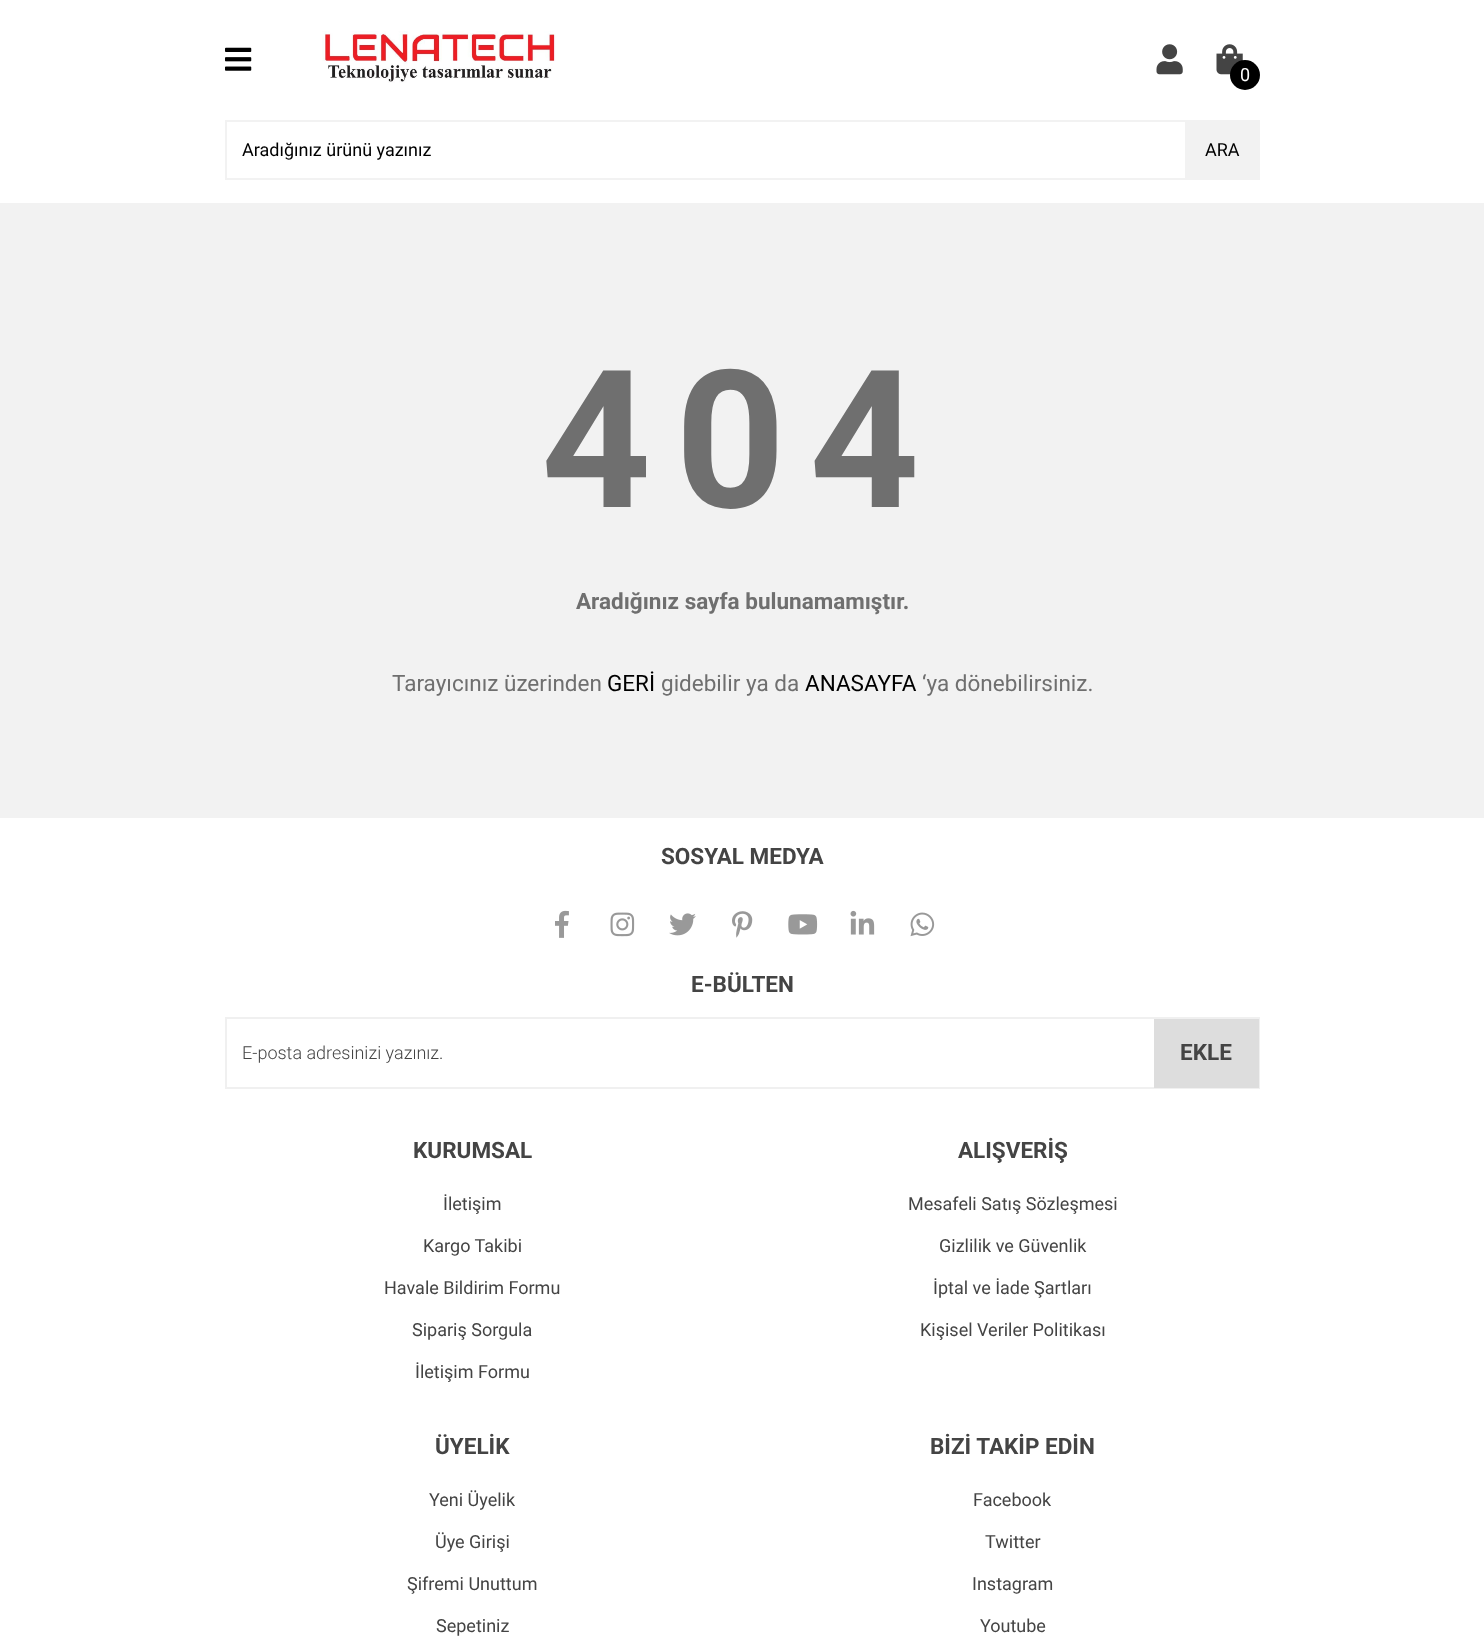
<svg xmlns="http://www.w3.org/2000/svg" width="1484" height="1646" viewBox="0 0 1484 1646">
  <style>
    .t1 { font: 18px Roboto; fill: #fff; }
    .t2 { font: 18px Roboto; fill: #000; }
    .t3 { font: bold 192px Roboto; letter-spacing: 24px; fill: #6f6f6f; }
    .t4 { font: bold 22.5px Roboto; fill: #6f6f6f; }
    .t5 { font: 22.5px Roboto; fill: #6f6f6f; }
    .t6 { font: 22.5px Roboto; fill: #000; }
    .t7 { font: bold 22.5px Roboto; fill: #444; }
    .t8 { font: 300 18px Roboto; fill: #444; }
    .t9 { font: 18px Roboto; fill: #444; }
  </style>
  <rect width="100%" height="100%" fill="#f2f2f2"/>
  <rect x="0" y="0" width="1484" height="203" fill="#fff"/>
  <image x="225" y="47" width="27" height="24" href="images/1.png"/>
  <image x="322" y="31" width="234" height="52" href="images/2.png"/>
  <image x="1156" y="44" width="27" height="31" href="images/3.png"/>
  <image x="1216" y="44" width="27" height="31" href="images/4.png"/>
  <circle cx="1245" cy="75" r="15" fill="#000"/>
  <text x="1240" y="81" class="t1">0</text>
  <rect x="226" y="121" width="1033" height="58" fill="none" stroke="#f2f2f2" stroke-width="2"/>
  <text x="242" y="156" class="t2">Aradığınız ürünü yazınız</text>
  <rect x="1185" y="122" width="73" height="56" fill="#f2f2f2"/>
  <text x="1205" y="156" class="t2">ARA</text>
  <text x="541" y="507" class="t3">404</text>
  <text x="576" y="609" class="t4">Aradığınız sayfa bulunamamıştır.</text>
  <text x="392" y="691" class="t5">Tarayıcınız üzerinden</text>
  <text x="607" y="691" class="t6">GERİ</text>
  <text x="661" y="691" class="t5">gidebilir ya da</text>
  <text x="805" y="691" class="t6">ANASAYFA</text>
  <text x="922" y="691" class="t5">‘ya dönebilirsiniz.</text>
  <rect x="0" y="818" width="1484" height="828" fill="#fff"/>
  <text x="661" y="864" class="t7">SOSYAL MEDYA</text>
  <image x="555" y="910" width="14" height="28" href="images/5.png"/>
  <image x="610" y="912" width="25" height="25" href="images/6.png"/>
  <image x="669" y="913" width="27" height="23" href="images/7.png"/>
  <image x="732" y="911" width="21" height="27" href="images/8.png"/>
  <image x="788" y="914" width="30" height="21" href="images/9.png"/>
  <image x="850" y="910" width="25" height="25" href="images/10.png"/>
  <image x="910" y="912" width="25" height="25" href="images/11.png"/>
  <text x="691" y="992" class="t7">E-BÜLTEN</text>
  <rect x="226" y="1018" width="1033" height="70" fill="none" stroke="#f0f0f0" stroke-width="2"/>
  <text x="242" y="1059" class="t8">E-posta adresinizi yazınız.</text>
  <rect x="1154" y="1019" width="105" height="69" fill="#ddd"/>
  <text x="1180" y="1060" class="t7">EKLE</text>
  <text x="413" y="1158" class="t7">KURUMSAL</text>
  <text x="443" y="1210" class="t9">İletişim</text>
  <text x="423" y="1252" class="t9">Kargo Takibi</text>
  <text x="384" y="1294" class="t9">Havale Bildirim Formu</text>
  <text x="412" y="1336" class="t9">Sipariş Sorgula</text>
  <text x="415" y="1378" class="t9">İletişim Formu</text>
  <text x="958" y="1158" class="t7">ALIŞVERİŞ</text>
  <text x="908" y="1210" class="t9">Mesafeli Satış Sözleşmesi</text>
  <text x="939" y="1252" class="t9">Gizlilik ve Güvenlik</text>
  <text x="933" y="1294" class="t9">İptal ve İade Şartları</text>
  <text x="920" y="1336" class="t9">Kişisel Veriler Politikası</text>
  <text x="435" y="1454" class="t7">ÜYELİK</text>
  <text x="429" y="1506" class="t9">Yeni Üyelik</text>
  <text x="435" y="1548" class="t9">Üye Girişi</text>
  <text x="407" y="1590" class="t9">Şifremi Unuttum</text>
  <text x="436" y="1632" class="t9">Sepetiniz</text>
  <text x="930" y="1454" class="t7">BİZİ TAKİP EDİN</text>
  <text x="973" y="1506" class="t9">Facebook</text>
  <text x="985" y="1548" class="t9">Twitter</text>
  <text x="972" y="1590" class="t9">Instagram</text>
  <text x="980" y="1632" class="t9">Youtube</text>
</svg>
